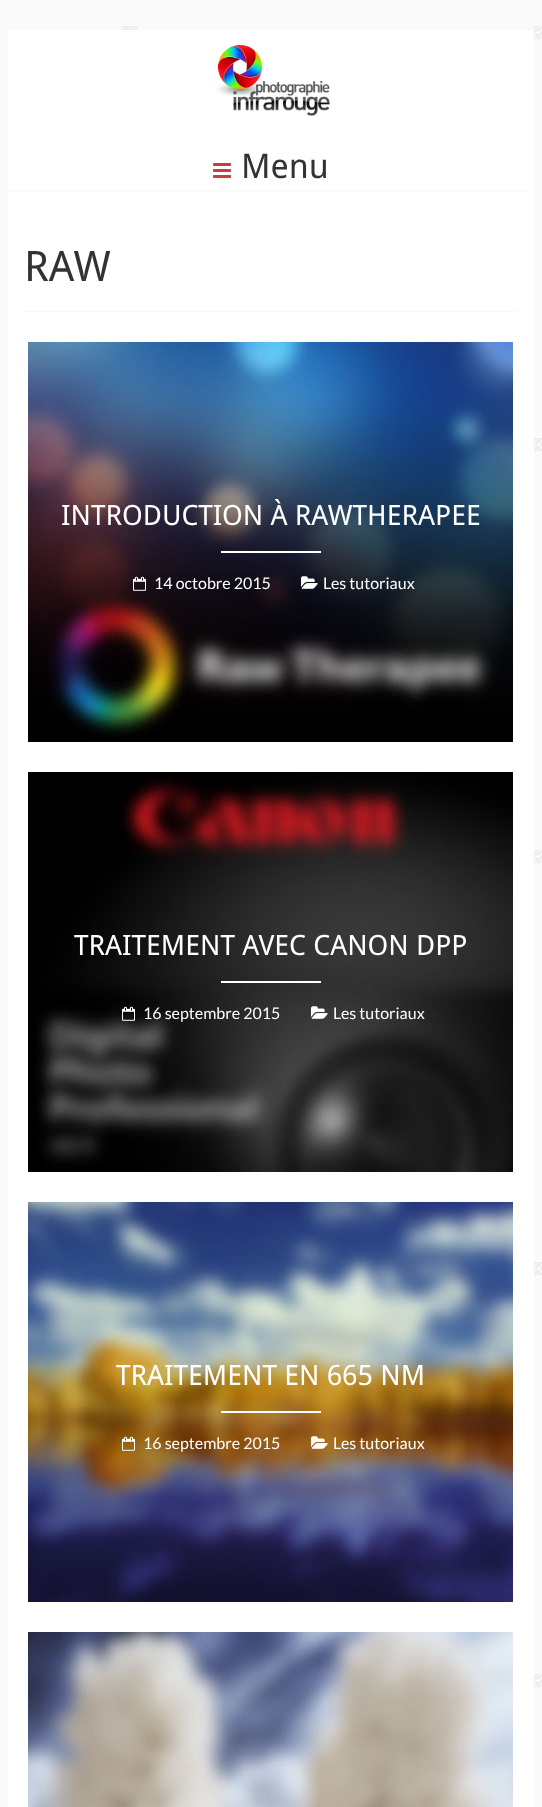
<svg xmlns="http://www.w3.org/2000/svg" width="542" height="1807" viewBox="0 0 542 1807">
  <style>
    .t1 { font: 34px Droid Sans; fill: #333; }
    .t2 { font: 42px Droid Sans; fill: #333; }
    .t3 { font: 28px Droid Sans; fill: #fff; }
    .t4 { font: 16px Lato; fill: #fff; }
  </style>
  <rect width="100%" height="100%" fill="#fff"/>
  <image x="0" y="0" width="542" height="1807" href="images/1.png"/>
  <rect x="8" y="30" width="526" height="161" fill="#fff"/>
  <image x="216" y="45" width="114" height="71" href="images/2.png"/>
  <image x="213" y="163" width="18" height="15" href="images/3.png"/>
  <text x="241" y="178" class="t1">Menu</text>
  <rect x="8" y="192" width="526" height="1615" fill="#fff"/>
  <rect x="24" y="311" width="494" height="1" fill="#f8f8f8"/>
  <text x="24" y="281" class="t2">RAW</text>
  <image x="28" y="342" width="485" height="400" href="images/4.png"/>
  <text x="61" y="525" class="t3">INTRODUCTION À RAWTHERAPEE</text>
  <rect x="221" y="551" width="100" height="2" fill="#fff"/>
  <image x="133" y="576" width="13" height="15" href="images/5.png"/>
  <text x="154" y="589" class="t4">14 octobre 2015</text>
  <image x="301" y="576" width="17" height="13" href="images/6.png"/>
  <text x="323" y="589" class="t4">Les tutoriaux</text>
  <image x="28" y="772" width="485" height="400" href="images/7.png"/>
  <text x="74" y="955" class="t3">TRAITEMENT AVEC CANON DPP</text>
  <rect x="221" y="981" width="100" height="2" fill="#fff"/>
  <image x="122" y="1006" width="13" height="15" href="images/8.png"/>
  <text x="143" y="1019" class="t4">16 septembre 2015</text>
  <image x="311" y="1006" width="17" height="13" href="images/9.png"/>
  <text x="333" y="1019" class="t4">Les tutoriaux</text>
  <image x="28" y="1202" width="485" height="400" href="images/10.png"/>
  <text x="116" y="1385" class="t3">TRAITEMENT EN 665 NM</text>
  <rect x="221" y="1411" width="100" height="2" fill="#fff"/>
  <image x="122" y="1436" width="13" height="15" href="images/11.png"/>
  <text x="143" y="1449" class="t4">16 septembre 2015</text>
  <image x="311" y="1436" width="17" height="13" href="images/12.png"/>
  <text x="333" y="1449" class="t4">Les tutoriaux</text>
  <image x="28" y="1632" width="485" height="175" href="images/13.png"/>
</svg>
